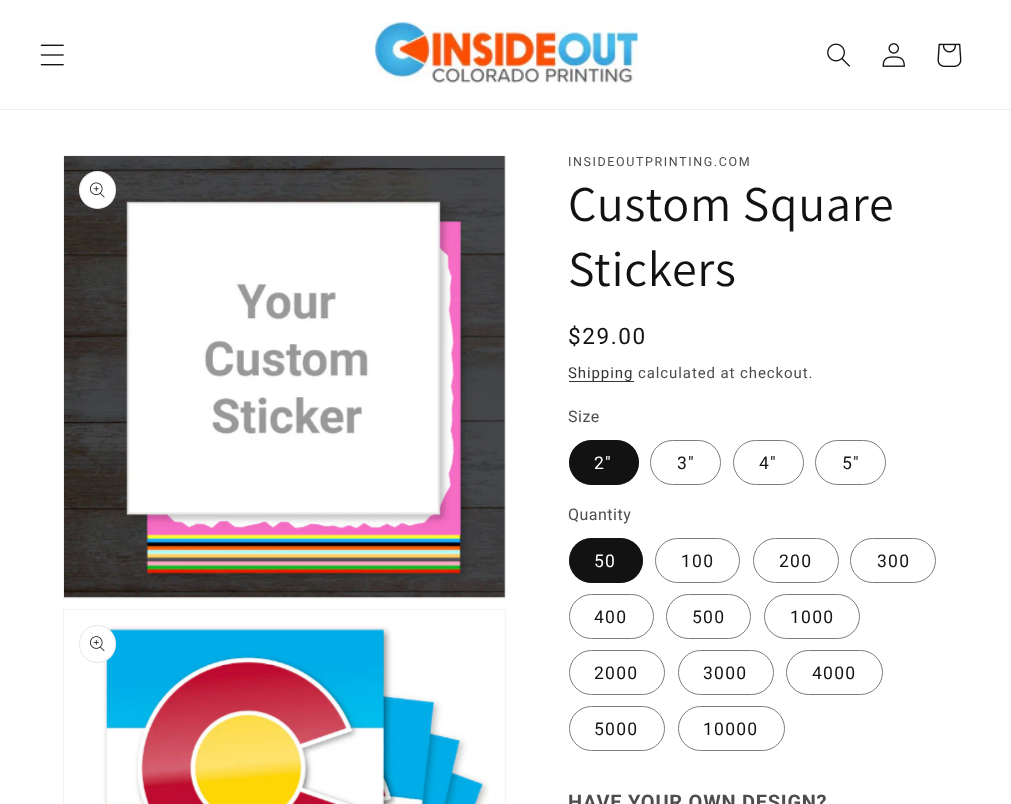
<svg xmlns="http://www.w3.org/2000/svg" width="1011" height="804" viewBox="0 0 1011 804">
  <style>
    .t1 { font: 12.5px Roboto; letter-spacing: 1.6px; fill: #4d4d4d; }
    .t2 { font: 50px Assistant; letter-spacing: 0.75px; fill: #121212; }
    .t3 { font: 22.5px Roboto; letter-spacing: 1.6px; fill: #121212; }
    .t4 { font: 15px Roboto; letter-spacing: 0.9px; fill: #353535; }
    .t5 { font: 15px Roboto; letter-spacing: 0.9px; fill: #4d4d4d; }
    .t6 { font: 16px Roboto; letter-spacing: 0.5px; fill: #4d4d4d; }
    .t7 { font: 17.5px Roboto; letter-spacing: 1.25px; fill: #fff; }
    .t8 { font: 17.5px Roboto; letter-spacing: 1.25px; fill: #121212; }
    .t9 { font: bold 20px Roboto; letter-spacing: 0.75px; fill: #4d4d4d; }
  </style>
  <rect width="100%" height="100%" fill="#fff"/>
  <rect x="0" y="109" width="1011" height="1" fill="#ececec"/>
  <image x="40" y="44" width="24" height="22" href="images/1.png"/>
  <image x="374" y="22" width="264" height="61" href="images/2.png"/>
  <image x="827" y="43" width="23" height="24" href="images/3.png"/>
  <image x="882" y="43" width="23" height="24" href="images/4.png"/>
  <image x="937" y="43" width="25" height="24" href="images/5.png"/>
  <rect x="63.5" y="155.5" width="442" height="443" fill="none" stroke="#f3f3f3"/>
  <image x="64" y="156" width="442" height="442" href="images/6.png"/>
  <rect x="79" y="171" width="37" height="38" rx="18.5" fill="#fff"/>
  <rect x="79.5" y="171.5" width="36" height="37" rx="18" fill="none" stroke="#1212121a"/>
  <image x="90" y="182" width="15" height="16" href="images/7.png"/>
  <rect x="63.5" y="609.5" width="442" height="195" fill="none" stroke="#f3f3f3"/>
  <image x="103" y="625" width="386" height="179" href="images/9.png"/>
  <rect x="79" y="625" width="37" height="38" rx="18.5" fill="#fff"/>
  <rect x="79.5" y="625.5" width="36" height="37" rx="18" fill="none" stroke="#1212121a"/>
  <image x="90" y="636" width="15" height="16" href="images/8.png"/>
  <text x="568" y="166" class="t1">INSIDEOUTPRINTING.COM</text>
  <text x="568" y="221" class="t2">Custom Square</text>
  <text x="568" y="286" class="t2">Stickers</text>
  <text x="568" y="344" class="t3">$29.00</text>
  <rect x="569" y="381" width="65" height="1" fill="#363636"/>
  <text x="568" y="378" class="t4">Shipping</text>
  <text x="638" y="378" class="t5">calculated at checkout.</text>
  <text x="568" y="422" class="t6">Size</text>
  <rect x="569" y="440" width="70" height="45" rx="22.5" fill="#121212"/>
  <rect x="569.5" y="440.5" width="69" height="44" rx="22" fill="none" stroke="#1212128c"/>
  <text x="594" y="469" class="t7">2"</text>
  <rect x="650.5" y="440.5" width="70" height="44" rx="22" fill="none" stroke="#7d7d7d"/>
  <text x="677" y="469" class="t8">3"</text>
  <rect x="733.5" y="440.5" width="70" height="44" rx="22" fill="none" stroke="#7d7d7d"/>
  <text x="759" y="469" class="t8">4"</text>
  <rect x="815.5" y="440.5" width="70" height="44" rx="22" fill="none" stroke="#7d7d7d"/>
  <text x="842" y="469" class="t8">5"</text>
  <text x="568" y="520" class="t6">Quantity</text>
  <rect x="569" y="538" width="74" height="45" rx="22.5" fill="#121212"/>
  <rect x="569.5" y="538.5" width="73" height="44" rx="22" fill="none" stroke="#1212128c"/>
  <text x="594" y="567" class="t7">50</text>
  <rect x="655.5" y="538.5" width="84" height="44" rx="22" fill="none" stroke="#7d7d7d"/>
  <text x="681" y="567" class="t8">100</text>
  <rect x="753.5" y="538.5" width="85" height="44" rx="22" fill="none" stroke="#7d7d7d"/>
  <text x="779" y="567" class="t8">200</text>
  <rect x="850.5" y="538.5" width="85" height="44" rx="22" fill="none" stroke="#7d7d7d"/>
  <text x="877" y="567" class="t8">300</text>
  <rect x="569.5" y="594.5" width="84" height="44" rx="22" fill="none" stroke="#7d7d7d"/>
  <text x="594" y="623" class="t8">400</text>
  <rect x="666.5" y="594.5" width="84" height="44" rx="22" fill="none" stroke="#7d7d7d"/>
  <text x="692" y="623" class="t8">500</text>
  <rect x="764.5" y="594.5" width="95" height="44" rx="22" fill="none" stroke="#7d7d7d"/>
  <text x="790" y="623" class="t8">1000</text>
  <rect x="569.5" y="650.5" width="95" height="44" rx="22" fill="none" stroke="#7d7d7d"/>
  <text x="594" y="679" class="t8">2000</text>
  <rect x="678.5" y="650.5" width="95" height="44" rx="22" fill="none" stroke="#7d7d7d"/>
  <text x="703" y="679" class="t8">3000</text>
  <rect x="786.5" y="650.5" width="96" height="44" rx="22" fill="none" stroke="#7d7d7d"/>
  <text x="812" y="679" class="t8">4000</text>
  <rect x="569.5" y="706.5" width="95" height="44" rx="22" fill="none" stroke="#7d7d7d"/>
  <text x="594" y="735" class="t8">5000</text>
  <rect x="678.5" y="706.5" width="106" height="44" rx="22" fill="none" stroke="#7d7d7d"/>
  <text x="703" y="735" class="t8">10000</text>
  <text x="568" y="809" class="t9">HAVE YOUR OWN DESIGN?</text>
</svg>
